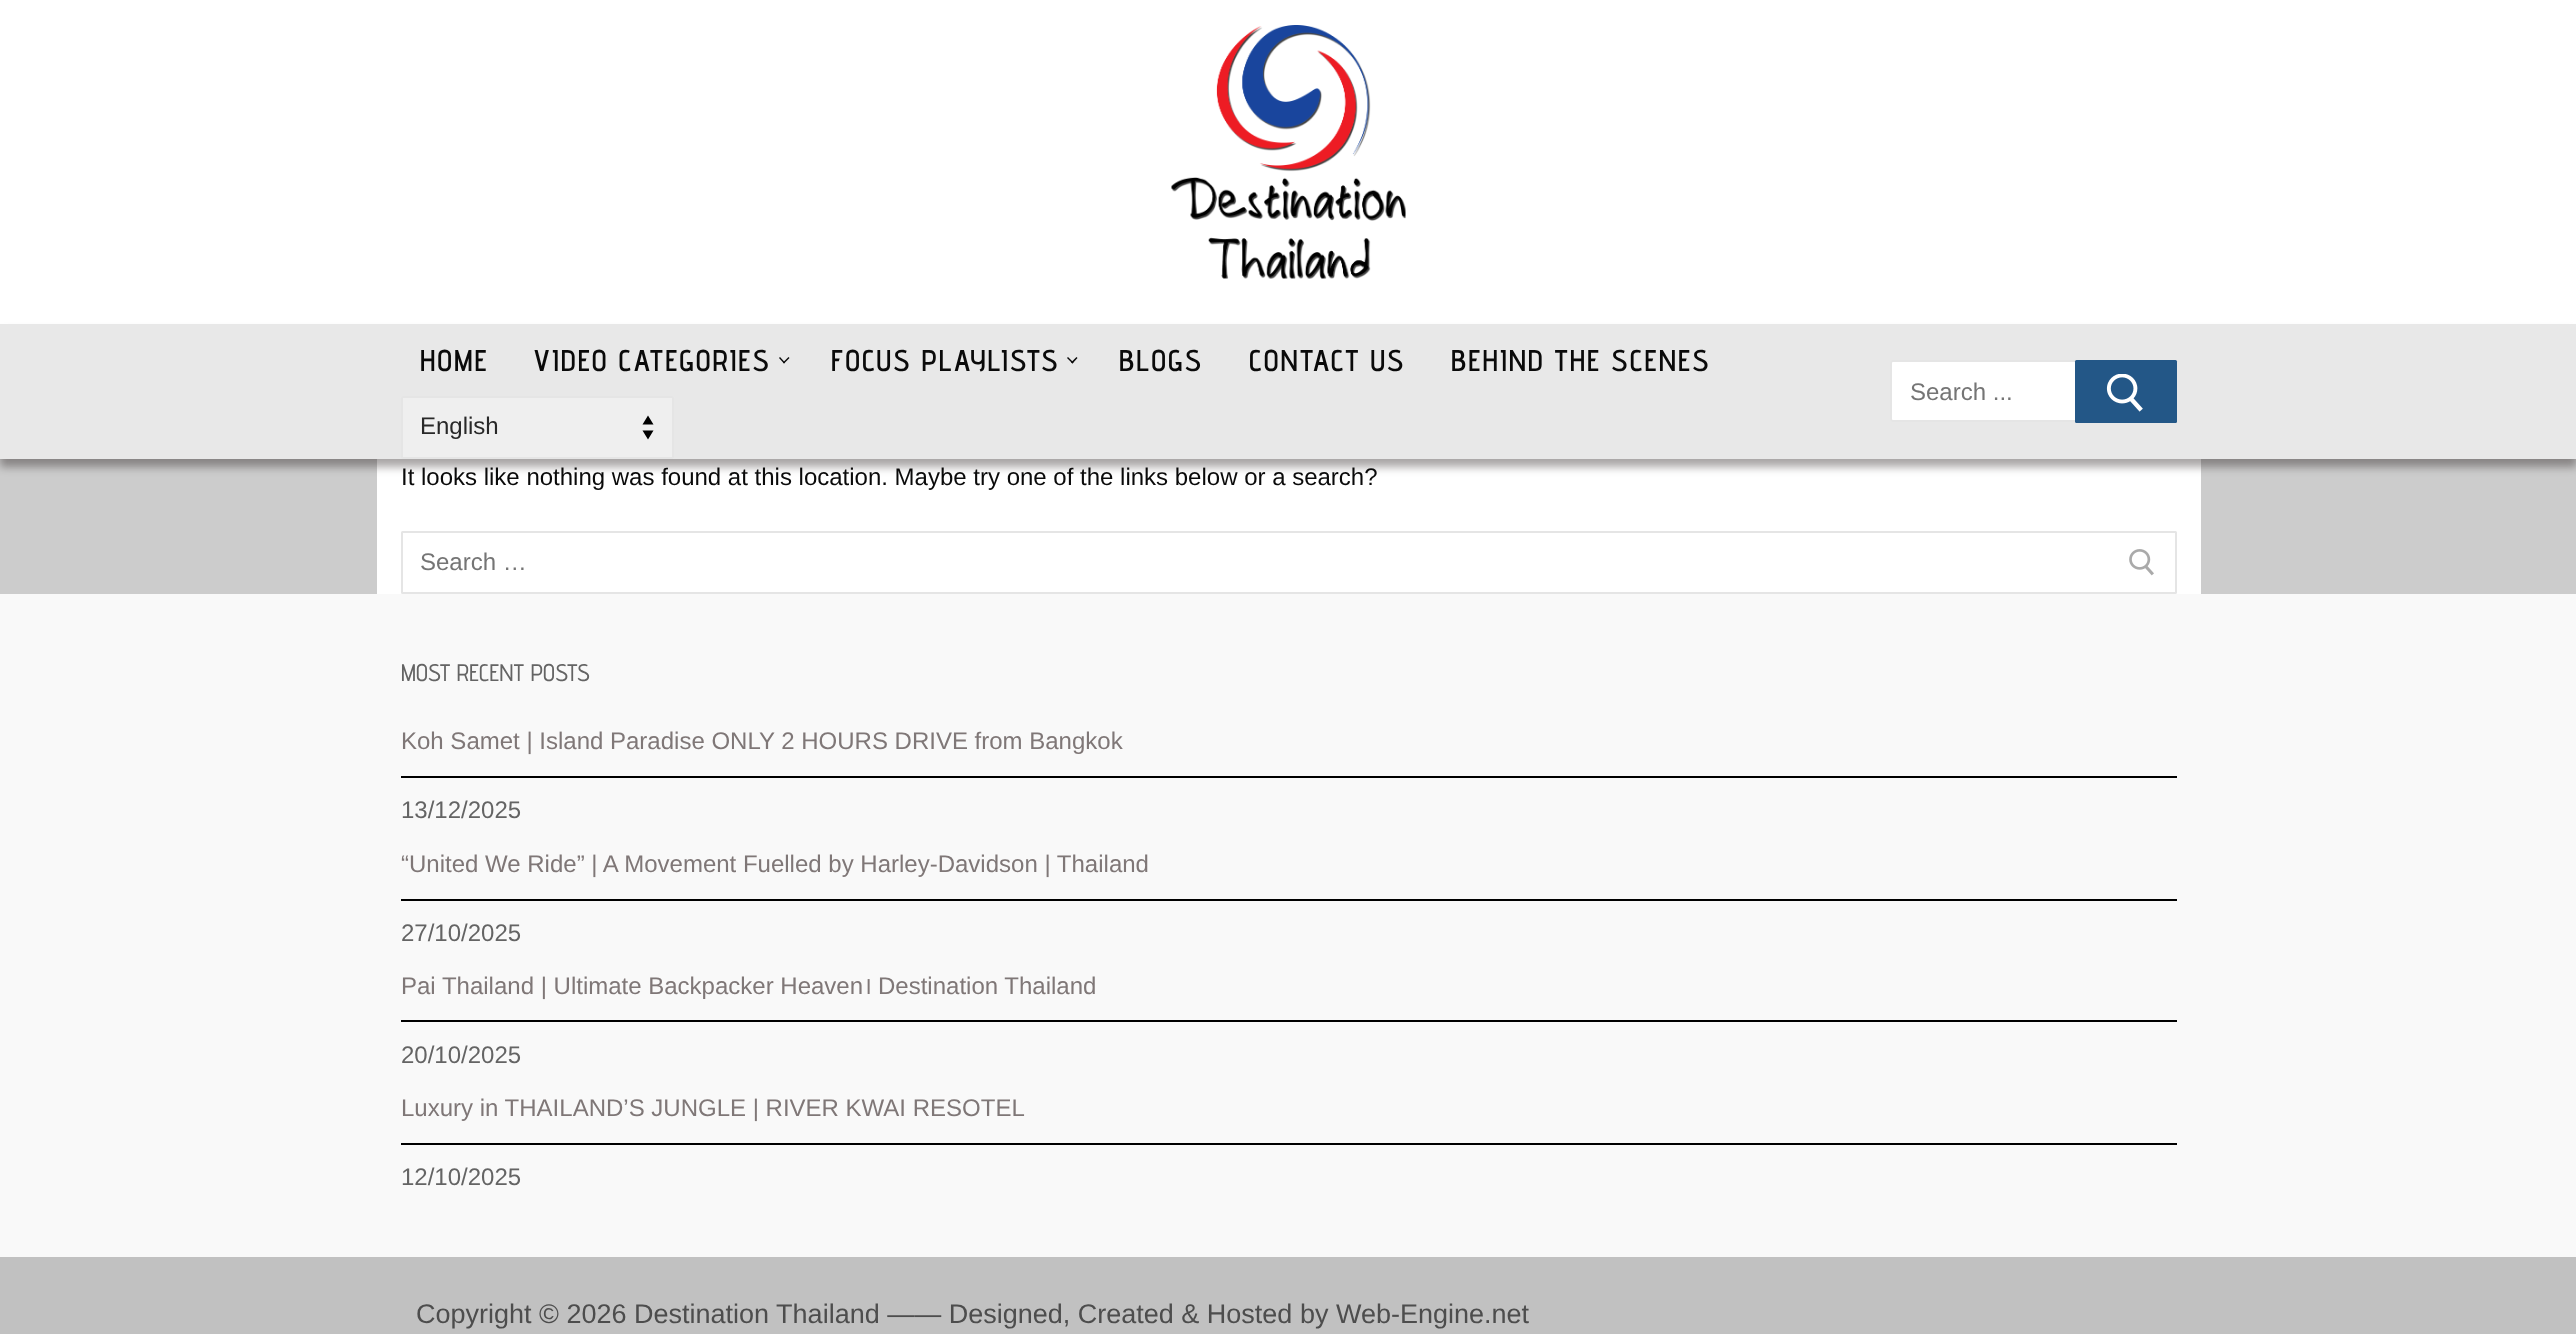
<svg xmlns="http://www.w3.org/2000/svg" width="2576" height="1334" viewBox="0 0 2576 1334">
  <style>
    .t1 { font: 600 30px Advent Pro; letter-spacing: 1.75px; fill: #0a0a0a; }
    .t2 { font: 24px Liberation Sans; fill: #282828; }
    .t3 { font: 24px Liberation Sans; fill: #757575; }
    .t4 { font: 24px Liberation Sans; fill: #0a0a0a; }
    .t5 { font: 500 24px Advent Pro; fill: #646464; }
    .t6 { font: 24px Liberation Sans; fill: #7f7777; }
    .t7 { font: 24px Liberation Sans; fill: #646464; }
    .t8 { font: 24px Noto Sans; fill: #7f7777; }
    .t9 { font: 27px Liberation Sans; fill: #4d4d4d; }
  </style>
  <rect width="100%" height="100%" fill="#fff"/>
  <image x="1171" y="25" width="235" height="254" href="images/1.png"/>
  <rect x="0" y="459" width="2576" height="135" fill="#ccc"/>
  <rect x="377" y="459" width="1824" height="135" fill="#fff"/>
  <rect x="0" y="332" width="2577" height="135" fill="#0a000059" filter="blur(4.5px)"/>
  <rect x="0" y="324" width="2576" height="135" fill="#e8e8e8"/>
  <text x="420" y="371" class="t1">HOME</text>
  <text x="534" y="371" class="t1">VIDEO CATEGORIES</text>
  <path d="M784 363.5L779 358L780 357L785 362.5Z" fill="#0a0a0a"/>
  <path d="M784 363.5L783 362.5L788.5 357L789.5 358Z" fill="#0a0a0a"/>
  <text x="831" y="371" class="t1">FOCUS PLAYLISTS</text>
  <path d="M1072.5 363.5L1067 358L1068 357L1073.5 362.5Z" fill="#0a0a0a"/>
  <path d="M1072.5 363.5L1071 362.5L1076.5 357L1077.5 358Z" fill="#0a0a0a"/>
  <text x="1119" y="371" class="t1">BLOGS</text>
  <text x="1249" y="371" class="t1">CONTACT US</text>
  <text x="1451" y="371" class="t1">BEHIND THE SCENES</text>
  <rect x="401" y="396" width="273" height="63" rx="1.5" fill="#efefef"/>
  <path d="M648 415.5L642.5 424.5H653.5ZM648 439.5L653.5 430.5H642.5Z" fill="#000"/>
  <rect x="402" y="397" width="271" height="61" rx="0.5" fill="none" stroke="#e5e5e5" stroke-width="2"/>
  <text x="420" y="434" class="t2">English</text>
  <rect x="1890" y="360" width="206" height="62" rx="3" fill="#fff"/>
  <rect x="1891" y="361" width="204" height="60" rx="2" fill="none" stroke="#7f7f7f33" stroke-width="2"/>
  <text x="1910" y="400" class="t3">Search ...</text>
  <rect x="2075" y="360" width="102" height="63" rx="1.5" fill="#235787"/>
  <image x="2106" y="374" width="37" height="38" href="images/2.png"/>
  <text x="401" y="485" class="t4">It looks like nothing was found at this location. Maybe try one of the links below or a search?</text>
  <rect x="402" y="532" width="1774" height="61" rx="0.5" fill="none" stroke="#e5e5e5" stroke-width="2"/>
  <text x="420" y="570" class="t3">Search …</text>
  <image x="2129" y="549" width="25" height="27" href="images/3.png"/>
  <rect x="0" y="594" width="2576" height="663" fill="#f9f9f9"/>
  <text x="401" y="681" class="t5">MOST RECENT POSTS</text>
  <rect x="401" y="776" width="1776" height="2" fill="#000"/>
  <text x="401" y="749" class="t6">Koh Samet | Island Paradise ONLY 2 HOURS DRIVE from Bangkok</text>
  <text x="401" y="818" class="t7">13/12/2025</text>
  <rect x="401" y="899" width="1776" height="2" fill="#000"/>
  <text x="401" y="872" class="t6">“United We Ride” | A Movement Fuelled by Harley-Davidson | Thailand</text>
  <text x="401" y="941" class="t7">27/10/2025</text>
  <rect x="401" y="1020" width="1776" height="2" fill="#000"/>
  <text x="401" y="994" class="t6">Pai Thailand | Ultimate Backpacker Heaven</text>
  <text x="863" y="994" class="t8">।</text>
  <text x="878" y="994" class="t6">Destination Thailand</text>
  <text x="401" y="1063" class="t7">20/10/2025</text>
  <rect x="401" y="1143" width="1776" height="2" fill="#000"/>
  <text x="401" y="1116" class="t6">Luxury in THAILAND’S JUNGLE | RIVER KWAI RESOTEL</text>
  <text x="401" y="1185" class="t7">12/10/2025</text>
  <rect x="0" y="1257" width="2576" height="77" fill="#c1c1c1"/>
  <text x="416" y="1323" class="t9">Copyright © 2026 Destination Thailand —— Designed, Created &amp; Hosted by Web-Engine.net</text>
</svg>
